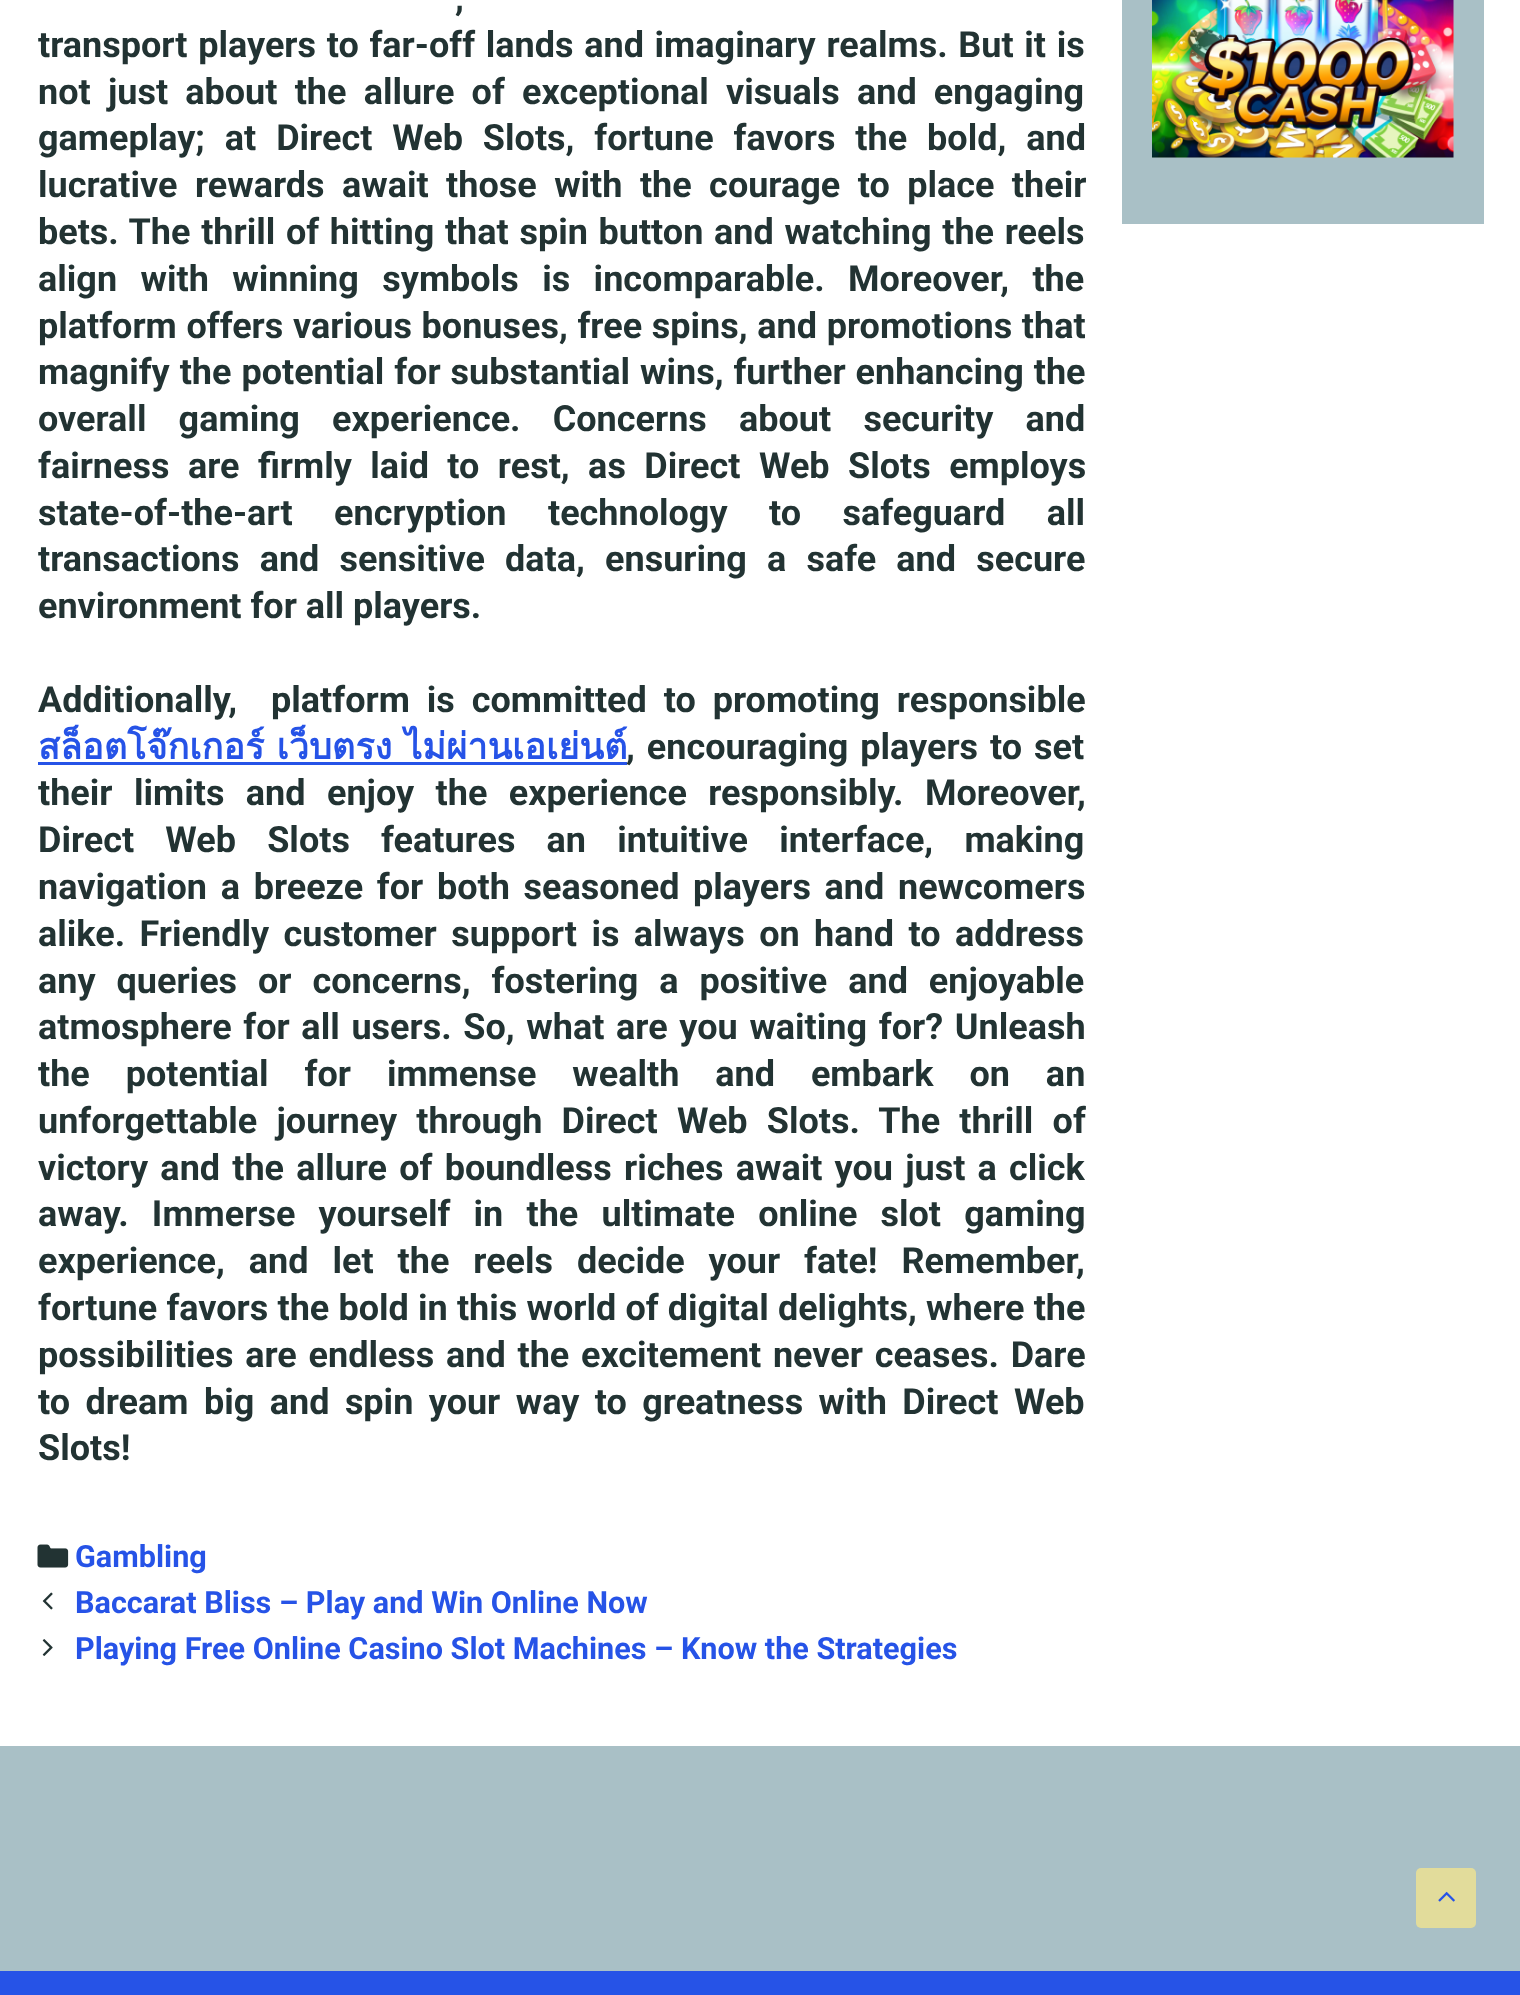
<svg xmlns="http://www.w3.org/2000/svg" width="1520" height="1995" viewBox="0 0 1520 1995">
  <style>
    .t1 { font: bold 36px Roboto; fill: #233; }
    .t2 { font: bold 36px Loma; fill: #2653e7; }
    .t3 { font: bold 30.6px Roboto; fill: #2653e7; }
  </style>
  <rect width="100%" height="100%" fill="#fff"/>
  <text x="455" y="10" word-spacing="17" class="t1">,</text>
  <text x="38" y="57" word-spacing="1.75" class="t1">transport players to far-off lands and imaginary realms. But it is</text>
  <text x="38" y="104" word-spacing="8.25" class="t1">not just about the allure of exceptional visuals and engaging</text>
  <text x="38" y="150" word-spacing="11" class="t1">gameplay; at Direct Web Slots, fortune favors the bold, and</text>
  <text x="38" y="197" word-spacing="8.5" class="t1">lucrative rewards await those with the courage to place their</text>
  <text x="38" y="244" word-spacing="1.75" class="t1">bets. The thrill of hitting that spin button and watching the reels</text>
  <text x="38" y="291" word-spacing="14.5" class="t1">align with winning symbols is incomparable. Moreover, the</text>
  <text x="38" y="338" word-spacing="0.75" class="t1">platform offers various bonuses, free spins, and promotions that</text>
  <text x="38" y="384" word-spacing="1" class="t1">magnify the potential for substantial wins, further enhancing the</text>
  <text x="38" y="431" word-spacing="23.25" class="t1">overall gaming experience. Concerns about security and</text>
  <text x="38" y="478" word-spacing="9.5" class="t1">fairness are firmly laid to rest, as Direct Web Slots employs</text>
  <text x="38" y="525" word-spacing="32.5" class="t1">state-of-the-art encryption technology to safeguard all</text>
  <text x="38" y="571" word-spacing="11.25" class="t1">transactions and sensitive data, ensuring a safe and secure</text>
  <text x="38" y="618" class="t1">environment for all players.</text>
  <text x="38" y="712" word-spacing="8" class="t1" xml:space="preserve">Additionally,  platform is committed to promoting responsible</text>
  <text x="38" y="759" class="t2">สล็อตโจ๊กเกอร์ เว็บตรง ไม่ผ่านเอเย่นต์</text>
  <rect x="38" y="762" width="589" height="3" fill="#2653e7"/>
  <text x="626" y="759" word-spacing="3" class="t1">, encouraging players to set</text>
  <text x="38" y="805" word-spacing="12.5" class="t1">their limits and enjoy the experience responsibly. Moreover,</text>
  <text x="38" y="852" word-spacing="22.25" class="t1">Direct Web Slots features an intuitive interface, making</text>
  <text x="38" y="899" word-spacing="4.75" class="t1">navigation a breeze for both seasoned players and newcomers</text>
  <text x="38" y="946" word-spacing="5.5" class="t1">alike. Friendly customer support is always on hand to address</text>
  <text x="38" y="993" word-spacing="12" class="t1">any queries or concerns, fostering a positive and enjoyable</text>
  <text x="38" y="1039" word-spacing="2.75" class="t1">atmosphere for all users. So, what are you waiting for? Unleash</text>
  <text x="38" y="1086" word-spacing="27" class="t1">the potential for immense wealth and embark on an</text>
  <text x="38" y="1133" word-spacing="10.25" class="t1">unforgettable journey through Direct Web Slots. The thrill of</text>
  <text x="38" y="1180" word-spacing="3.25" class="t1">victory and the allure of boundless riches await you just a click</text>
  <text x="38" y="1226" word-spacing="14.25" class="t1">away. Immerse yourself in the ultimate online slot gaming</text>
  <text x="38" y="1273" word-spacing="15" class="t1">experience, and let the reels decide your fate! Remember,</text>
  <text x="38" y="1320" word-spacing="0.25" class="t1">fortune favors the bold in this world of digital delights, where the</text>
  <text x="38" y="1367" word-spacing="2.75" class="t1">possibilities are endless and the excitement never ceases. Dare</text>
  <text x="38" y="1414" word-spacing="6.5" class="t1">to dream big and spin your way to greatness with Direct Web</text>
  <text x="38" y="1460" class="t1">Slots!</text>
  <image x="37" y="1544" width="32" height="24" href="images/1.png"/>
  <text x="75" y="1567" class="t3">Gambling</text>
  <image x="42" y="1592" width="11" height="18" href="images/2.png"/>
  <text x="75" y="1613" class="t3">Baccarat Bliss – Play and Win Online Now</text>
  <image x="42" y="1639" width="11" height="17" href="images/3.png"/>
  <text x="75" y="1659" class="t3">Playing Free Online Casino Slot Machines – Know the Strategies</text>
  <rect x="1122" y="0" width="362" height="224" fill="#a9c0c6"/>
  <image x="1152" y="0" width="302" height="158" href="images/4.png"/>
  <rect x="0" y="1746" width="1520" height="225" fill="#a9c0c6"/>
  <rect x="0" y="1971" width="1520" height="24" fill="#2653e7"/>
  <rect x="1416" y="1868" width="60" height="60" rx="5" fill="#e2dc9b"/>
  <image x="1438" y="1891" width="17" height="11" href="images/5.png"/>
</svg>
